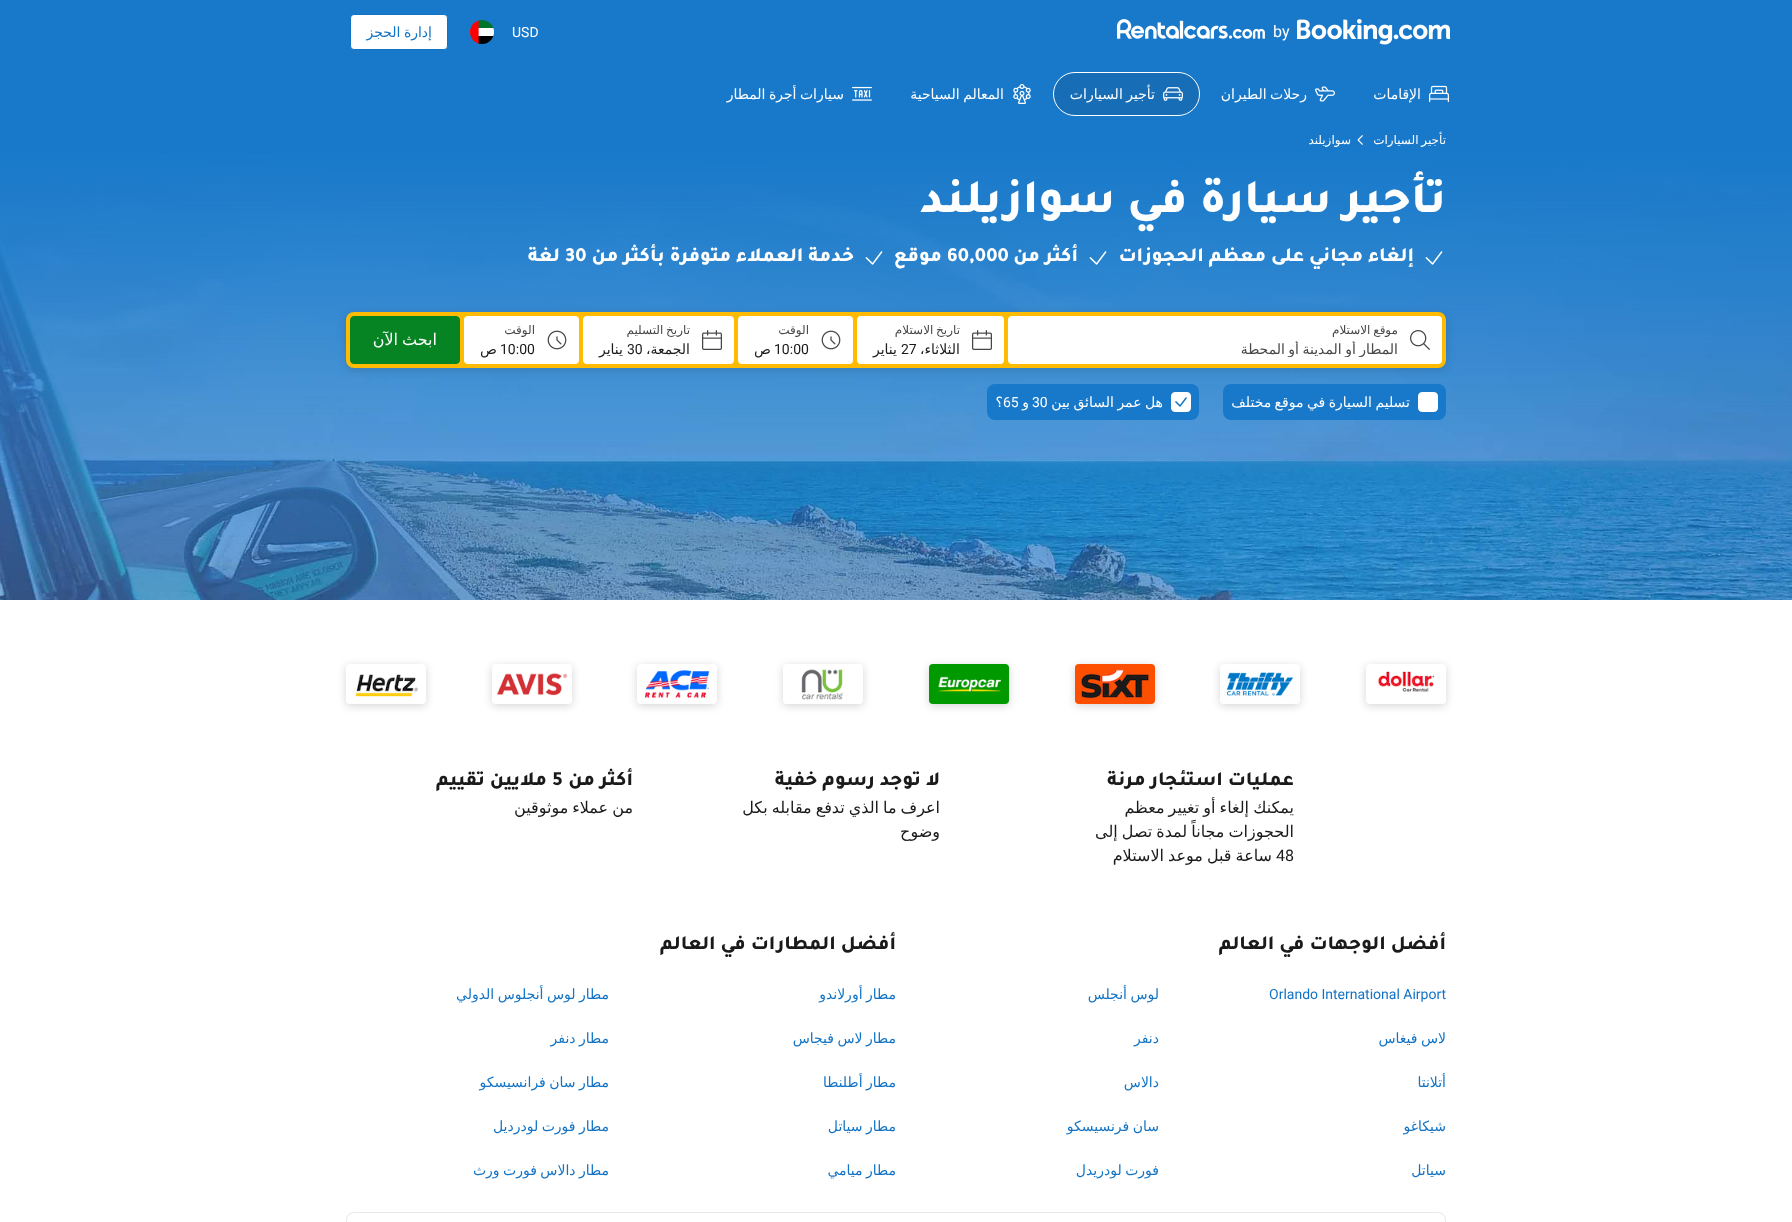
<svg xmlns="http://www.w3.org/2000/svg" width="1792" height="1222" viewBox="0 0 1792 1222">
  <style>
    .t1 { font: 16px Roboto; fill: #fff; }
    .t2 { font: 14px Roboto; fill: #fff; }
    .t3 { font: 14px DejaVu Sans; direction: rtl; fill: #1273c4; }
    .t4 { font: 14px DejaVu Sans; direction: rtl; fill: #fff; }
    .t5 { font: 12px DejaVu Sans; direction: rtl; fill: #fff; }
    .t6 { font: 800 48px Tajawal; direction: rtl; fill: #fff; }
    .t7 { font: 800 20px Tajawal; direction: rtl; fill: #fff; }
    .t8 { font: 800 20px Tajawal; fill: #fff; }
    .t9 { font: 12px DejaVu Sans; direction: rtl; fill: #474747; }
    .t10 { font: 14px DejaVu Sans; direction: rtl; fill: #474747; }
    .t11 { font: 14px DejaVu Sans; direction: rtl; fill: #1a1a1a; }
    .t12 { font: 14px Roboto; fill: #1a1a1a; }
    .t13 { font: 16px DejaVu Sans; direction: rtl; fill: #fff; }
    .t14 { font: 800 20px Tajawal; direction: rtl; fill: #1a1a1a; }
    .t15 { font: 16px DejaVu Sans; direction: rtl; fill: #1a1a1a; }
    .t16 { font: 16px Roboto; fill: #1a1a1a; }
    .t17 { font: 800 20px Tajawal; fill: #1a1a1a; }
    .t18 { font: 14px Roboto; fill: #1273c4; }
  </style>
  <defs>
    <clipPath id="clip1"><rect x="1024" y="341" width="374" height="16"/></clipPath>
    <clipPath id="clip2"><path d="M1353 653H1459V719H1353ZM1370 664H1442C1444 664 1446 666 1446 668V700C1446 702 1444 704 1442 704H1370C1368 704 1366 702 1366 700V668C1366 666 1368 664 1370 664Z" clip-rule="evenodd"/></clipPath>
    <clipPath id="clip3"><path d="M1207 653H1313V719H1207ZM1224 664H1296C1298 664 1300 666 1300 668V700C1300 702 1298 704 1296 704H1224C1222 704 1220 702 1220 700V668C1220 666 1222 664 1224 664Z" clip-rule="evenodd"/></clipPath>
    <clipPath id="clip4"><path d="M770 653H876V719H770ZM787 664H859C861 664 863 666 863 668V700C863 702 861 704 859 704H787C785 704 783 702 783 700V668C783 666 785 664 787 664Z" clip-rule="evenodd"/></clipPath>
    <clipPath id="clip5"><path d="M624 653H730V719H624ZM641 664H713C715 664 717 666 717 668V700C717 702 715 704 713 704H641C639 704 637 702 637 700V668C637 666 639 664 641 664Z" clip-rule="evenodd"/></clipPath>
    <clipPath id="clip6"><path d="M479 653H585V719H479ZM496 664H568C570 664 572 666 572 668V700C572 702 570 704 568 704H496C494 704 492 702 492 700V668C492 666 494 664 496 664Z" clip-rule="evenodd"/></clipPath>
    <clipPath id="clip7"><path d="M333 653H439V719H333ZM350 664H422C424 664 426 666 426 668V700C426 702 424 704 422 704H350C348 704 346 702 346 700V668C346 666 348 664 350 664Z" clip-rule="evenodd"/></clipPath>
  </defs>
  <rect width="100%" height="100%" fill="#fff"/>
  <rect x="0" y="0" width="1792" height="150" fill="#1879ca"/>
  <image x="1297" y="19" width="153" height="26" href="images/1.png"/>
  <text x="1273" y="37" class="t1">by</text>
  <image x="1117" y="19" width="148" height="20" href="images/2.png"/>
  <text x="512" y="37" class="t2">USD</text>
  <image x="470" y="20" width="24" height="24" href="images/3.png"/>
  <rect x="350.5" y="14.5" width="97" height="35" rx="3.5" fill="#fff" stroke="#1273c4"/>
  <text x="432" y="37" word-spacing="-1" class="t3">إدارة الحجز</text>
  <image x="1429" y="85" width="20" height="18" href="images/4.png"/>
  <text x="1421" y="99" class="t4">الإقامات</text>
  <image x="1315" y="86" width="20" height="16" href="images/5.png"/>
  <text x="1307" y="99" word-spacing="-1" class="t4">رحلات الطيران</text>
  <rect x="1053.5" y="72.5" width="146" height="43" rx="21.5" fill="none" stroke="#fff"/>
  <rect x="1054" y="73" width="145" height="42" rx="21" fill="#0f0f0f1a"/>
  <image x="1163" y="87" width="20" height="14" href="images/6.png"/>
  <text x="1155" y="99" word-spacing="-1" class="t4">تأجير السيارات</text>
  <image x="1013" y="84" width="18" height="20" href="images/7.png"/>
  <text x="1004" y="99" word-spacing="-1" class="t4">المعالم السياحية</text>
  <image x="852" y="86" width="20" height="15" href="images/8.png"/>
  <text x="844" y="99" word-spacing="-1" class="t4">سيارات أجرة المطار</text>
  <text x="1446" y="144" word-spacing="-1" class="t5">تأجير السيارات</text>
  <image x="1357" y="135" width="6" height="10" href="images/9.png"/>
  <text x="1351" y="144" class="t5">سوازيلند</text>
  <image x="0" y="150" width="1792" height="450" href="images/10.png"/>
  <text x="1446" y="212" class="t6">تأجير سيارة في سوازيلند</text>
  <image x="1425" y="251" width="18" height="14" href="images/11.png"/>
  <text x="1414" y="261" class="t7">إلغاء مجاني على معظم الحجوزات</text>
  <image x="1089" y="251" width="18" height="14" href="images/12.png"/>
  <text x="1078" y="261" class="t7">أكثر من</text>
  <text x="947" y="261" class="t8">60,000</text>
  <text x="942" y="261" class="t7">موقع</text>
  <image x="865" y="251" width="18" height="14" href="images/13.png"/>
  <text x="854" y="261" class="t7">خدمة العملاء متوفرة بأكثر من</text>
  <text x="565" y="261" class="t8">30</text>
  <text x="560" y="261" class="t7">لغة</text>
  <rect x="346" y="314" width="1100" height="56" rx="8" fill="#1a1a1a29" filter="blur(4px)"/>
  <rect x="346" y="312" width="1100" height="56" rx="8" fill="#febb02"/>
  <rect x="1008" y="316" width="434" height="48" rx="4" fill="#fff"/>
  <image x="1410" y="330" width="20" height="20" href="images/14.png"/>
  <text x="1398" y="334" word-spacing="-1" class="t9">موقع الاستلام</text>
  <g clip-path="url(#clip1)">
    <text x="1398" y="354" word-spacing="-1" class="t10">المطار أو المدينة أو المحطة</text>
  </g>
  <rect x="857" y="316" width="147" height="48" rx="4" fill="#fff"/>
  <image x="972" y="330" width="20" height="20" href="images/15.png"/>
  <text x="960" y="334" word-spacing="-1" class="t9">تاريخ الاستلام</text>
  <text x="960" y="354" class="t11">الثلاثاء،</text>
  <text x="901" y="354" class="t12">27</text>
  <text x="897" y="354" class="t11">يناير</text>
  <rect x="738" y="316" width="115" height="48" rx="4" fill="#fff"/>
  <image x="821" y="330" width="20" height="20" href="images/16.png"/>
  <text x="809" y="334" class="t9">الوقت</text>
  <text x="774" y="354" class="t12">10:00</text>
  <text x="771" y="354" class="t11">ص</text>
  <rect x="583" y="316" width="151" height="48" rx="4" fill="#fff"/>
  <image x="702" y="330" width="20" height="20" href="images/15.png"/>
  <text x="690" y="334" word-spacing="-1" class="t9">تاريخ التسليم</text>
  <text x="690" y="354" class="t11">الجمعة،</text>
  <text x="627" y="354" class="t12">30</text>
  <text x="623" y="354" class="t11">يناير</text>
  <rect x="464" y="316" width="115" height="48" rx="4" fill="#fff"/>
  <image x="547" y="330" width="20" height="20" href="images/16.png"/>
  <text x="535" y="334" class="t9">الوقت</text>
  <text x="500" y="354" class="t12">10:00</text>
  <text x="497" y="354" class="t11">ص</text>
  <rect x="350.5" y="316.5" width="109" height="47" rx="3.5" fill="#068323" stroke="#068323"/>
  <text x="437" y="345" word-spacing="-1" class="t13">ابحث الآن</text>
  <rect x="1223" y="384" width="223" height="36" rx="8" fill="#1879ca"/>
  <rect x="1418.5" y="392.5" width="19" height="19" rx="3.5" fill="#fff" stroke="#fff"/>
  <text x="1410" y="407" word-spacing="-1" class="t4">تسليم السيارة في موقع مختلف</text>
  <rect x="987" y="384" width="212" height="36" rx="8" fill="#1879ca"/>
  <rect x="1171.5" y="392.5" width="19" height="19" rx="3.5" fill="#fff" stroke="#fff"/>
  <image x="1175" y="397" width="12" height="10" href="images/17.png"/>
  <text x="1163" y="407" word-spacing="-1" class="t4">هل عمر السائق بين</text>
  <text x="1032" y="407" class="t2">30</text>
  <text x="1029" y="407" class="t4">و</text>
  <text x="1003" y="407" class="t2">65</text>
  <text x="1003" y="407" class="t4">؟</text>
  <g clip-path="url(#clip2)">
    <rect x="1366" y="666" width="80" height="40" rx="4" fill="#00000029" filter="blur(4px)"/>
  </g>
  <image x="1366" y="671" width="80" height="33" href="images/18.png"/>
  <g clip-path="url(#clip3)">
    <rect x="1220" y="666" width="80" height="40" rx="4" fill="#00000029" filter="blur(4px)"/>
  </g>
  <image x="1220" y="670" width="80" height="34" href="images/19.png"/>
  <rect x="1075" y="666" width="80" height="40" rx="4" fill="#00000029" filter="blur(4px)"/>
  <image x="1075" y="664" width="80" height="40" href="images/20.png"/>
  <rect x="929" y="666" width="80" height="40" rx="4" fill="#00000029" filter="blur(4px)"/>
  <image x="929" y="664" width="80" height="40" href="images/21.png"/>
  <g clip-path="url(#clip4)">
    <rect x="783" y="666" width="80" height="40" rx="4" fill="#00000029" filter="blur(4px)"/>
  </g>
  <image x="783" y="669" width="80" height="35" href="images/22.png"/>
  <g clip-path="url(#clip5)">
    <rect x="637" y="666" width="80" height="40" rx="4" fill="#00000029" filter="blur(4px)"/>
  </g>
  <image x="637" y="670" width="80" height="34" href="images/23.png"/>
  <g clip-path="url(#clip6)">
    <rect x="492" y="666" width="80" height="40" rx="4" fill="#00000029" filter="blur(4px)"/>
  </g>
  <image x="492" y="673" width="80" height="31" href="images/24.png"/>
  <g clip-path="url(#clip7)">
    <rect x="346" y="666" width="80" height="40" rx="4" fill="#00000029" filter="blur(4px)"/>
  </g>
  <image x="346" y="674" width="80" height="30" href="images/25.png"/>
  <text x="1294" y="785" class="t14">عمليات استئجار مرنة</text>
  <text x="1294" y="813" word-spacing="-1" class="t15">يمكنك إلغاء أو تغيير معظم</text>
  <text x="1294" y="837" word-spacing="-1" class="t15">الحجوزات مجاناً لمدة تصل إلى</text>
  <text x="1276" y="861" class="t16">48</text>
  <text x="1272" y="861" word-spacing="-1" class="t15">ساعة قبل موعد الاستلام</text>
  <text x="940" y="785" class="t14">لا توجد رسوم خفية</text>
  <text x="940" y="813" word-spacing="-1" class="t15">اعرف ما الذي تدفع مقابله بكل</text>
  <text x="940" y="837" class="t15">وضوح</text>
  <text x="633" y="785" class="t14">أكثر من</text>
  <text x="552" y="785" class="t17">5</text>
  <text x="547" y="785" class="t14">ملايين تقييم</text>
  <text x="633" y="813" word-spacing="-1" class="t15">من عملاء موثوقين</text>
  <text x="1446" y="949" class="t14">أفضل الوجهات في العالم</text>
  <text x="1269" y="999" class="t18">Orlando International Airport</text>
  <text x="1159" y="999" word-spacing="-1" class="t3">لوس أنجلس</text>
  <text x="1446" y="1043" word-spacing="-1" class="t3">لاس فيغاس</text>
  <text x="1159" y="1043" class="t3">دنفر</text>
  <text x="1446" y="1087" class="t3">أتلانتا</text>
  <text x="1159" y="1087" class="t3">دالاس</text>
  <text x="1446" y="1131" class="t3">شيكاغو</text>
  <text x="1159" y="1131" word-spacing="-1" class="t3">سان فرنسيسكو</text>
  <text x="1446" y="1175" class="t3">سياتل</text>
  <text x="1159" y="1175" word-spacing="-1" class="t3">فورت لودريدل</text>
  <text x="896" y="949" class="t14">أفضل المطارات في العالم</text>
  <text x="896" y="999" word-spacing="-1" class="t3">مطار أورلاندو</text>
  <text x="609" y="999" word-spacing="-1" class="t3">مطار لوس أنجلوس الدولي</text>
  <text x="896" y="1043" word-spacing="-1" class="t3">مطار لاس فيجاس</text>
  <text x="609" y="1043" word-spacing="-1" class="t3">مطار دنفر</text>
  <text x="896" y="1087" word-spacing="-1" class="t3">مطار أطلنطا</text>
  <text x="609" y="1087" word-spacing="-1" class="t3">مطار سان فرانسيسكو</text>
  <text x="896" y="1131" word-spacing="-1" class="t3">مطار سياتل</text>
  <text x="609" y="1131" word-spacing="-1" class="t3">مطار فورت لودرديل</text>
  <text x="896" y="1175" word-spacing="-1" class="t3">مطار ميامي</text>
  <text x="609" y="1175" word-spacing="-1" class="t3">مطار دالاس فورت ورث</text>
  <rect x="346.5" y="1212.5" width="1099" height="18" rx="7.5" fill="none" stroke="#e7e7e7"/>
</svg>
